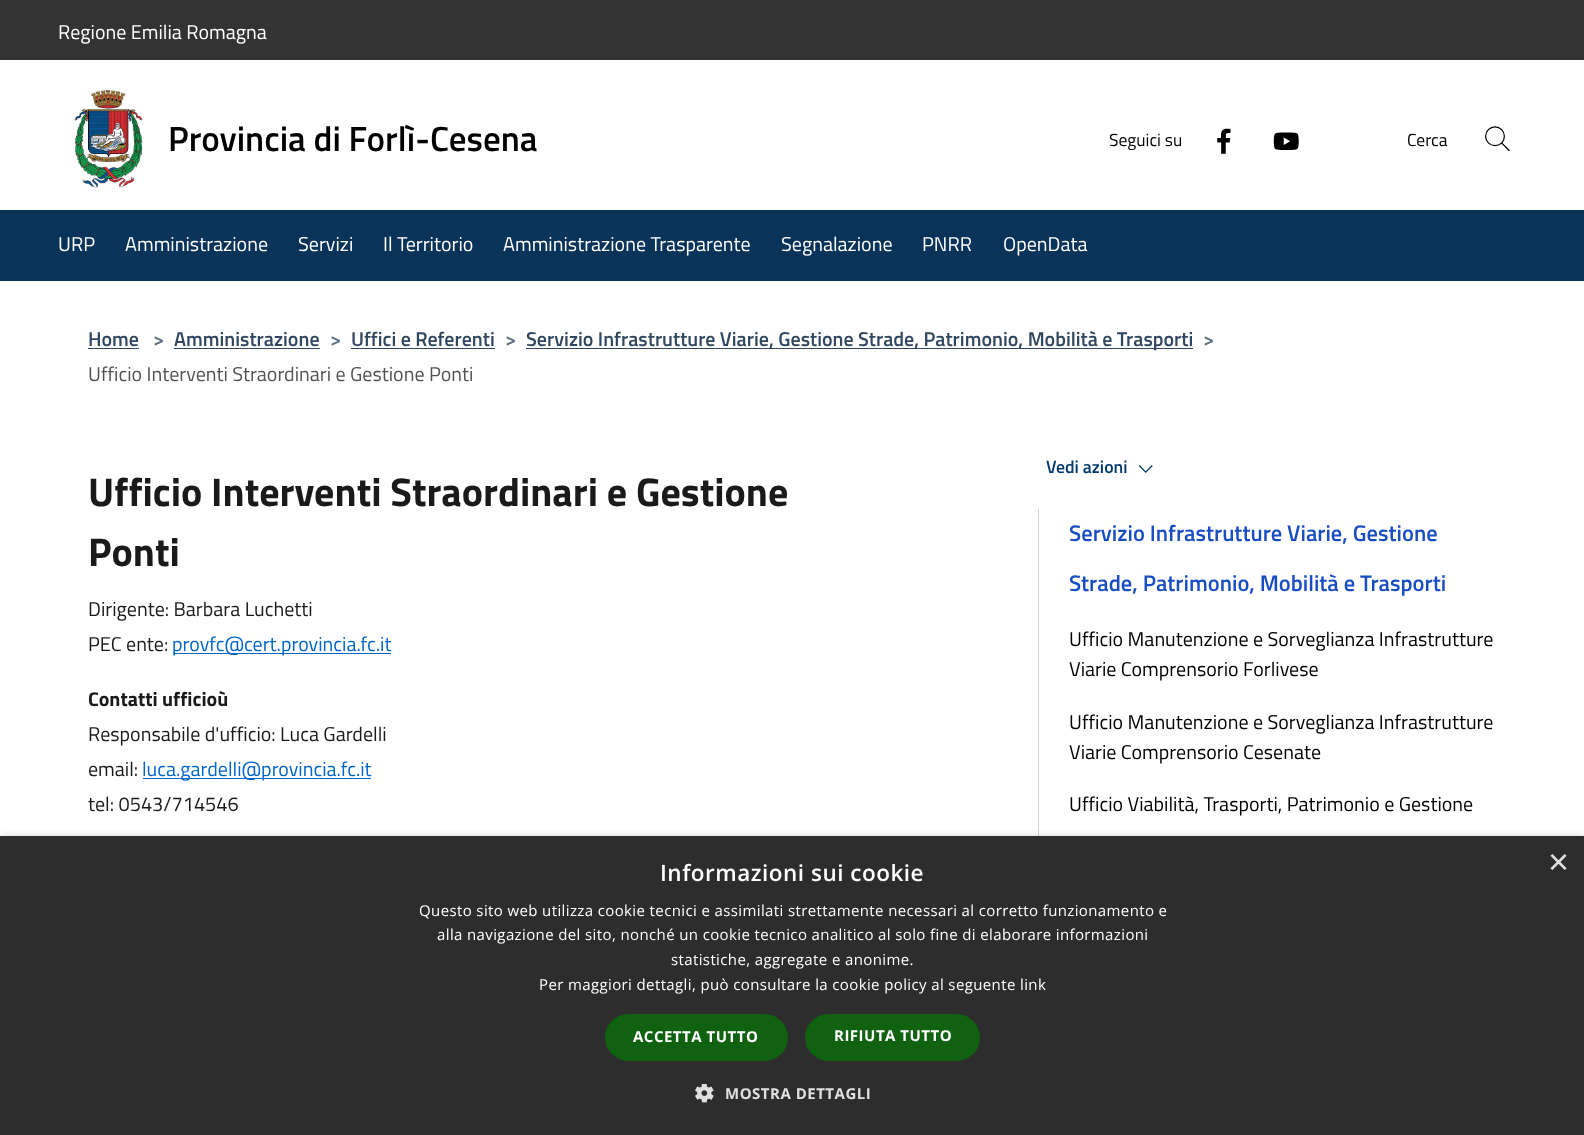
<svg xmlns="http://www.w3.org/2000/svg" width="1584" height="1135" viewBox="0 0 1584 1135">
  <style>
    .t1 { font: 20px Titillium Web; fill: #fff; }
    .t2 { font: 600 35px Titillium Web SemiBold; fill: #000; }
    .t3 { font: 17.5px Titillium Web; fill: #000; }
    .t4 { font: 600 20px Titillium Web SemiBold; fill: #30475f; }
    .t5 { font: 600 20px Titillium Web SemiBold; fill: #5d7083; }
    .t6 { font: 20px Titillium Web; fill: #525252; }
    .t7 { font: bold 40px Titillium Web; fill: #1a1a1a; }
    .t8 { font: 20px Titillium Web; fill: #1a1a1a; }
    .t9 { font: 20px Titillium Web; fill: #06c; }
    .t10 { font: bold 20px Titillium Web; fill: #1a1a1a; }
    .t11 { font: 600 17.75px Titillium Web SemiBold; fill: #00396e; }
    .t12 { font: 600 22.5px Titillium Web SemiBold; fill: #194dc3; }
    .t13 { font: 20px Titillium Web; fill: #000; }
    .t14 { font: 600 22.5px Open Sans; letter-spacing: 0.5px; fill: #fff; }
    .t15 { font: 36px Liberation Sans; fill: #e0e0e0; }
    .t16 { font: 15px Open Sans; letter-spacing: 0.38px; fill: #fff; }
    .t17 { font: bold 15px Open Sans; letter-spacing: 0.5px; fill: #fff; }
    .t18 { font: bold 15px Open Sans; letter-spacing: 0.5px; fill: #e0e0e0; }
  </style>
  <rect width="100%" height="100%" fill="#fff"/>
  <rect x="0" y="0" width="1584" height="60" fill="#333"/>
  <text x="58" y="39" class="t1">Regione Emilia Romagna</text>
  <image x="74" y="89" width="69" height="99" href="images/1.png"/>
  <text x="168" y="151" class="t2">Provincia di Forlì-Cesena</text>
  <text x="1109" y="146" class="t3">Seguici su</text>
  <image x="1217" y="128" width="14" height="26" href="images/2.png"/>
  <image x="1273" y="132" width="26" height="18" href="images/3.png"/>
  <text x="1407" y="146" class="t3">Cerca</text>
  <image x="1485" y="126" width="25" height="26" href="images/4.png"/>
  <rect x="0" y="210" width="1584" height="71" fill="#0a3359"/>
  <text x="58" y="251" class="t1">URP</text>
  <text x="125" y="251" class="t1">Amministrazione</text>
  <text x="298" y="251" class="t1">Servizi</text>
  <text x="383" y="251" class="t1">Il Territorio</text>
  <text x="503" y="251" class="t1">Amministrazione Trasparente</text>
  <text x="781" y="251" class="t1">Segnalazione</text>
  <text x="922" y="251" class="t1">PNRR</text>
  <text x="1003" y="251" class="t1">OpenData</text>
  <text x="88" y="346" class="t4">Home</text>
  <rect x="88" y="348" width="51" height="1" fill="#30475f"/>
  <text x="153" y="346" class="t5">&gt;</text>
  <text x="174" y="346" class="t4">Amministrazione</text>
  <rect x="174" y="348" width="146" height="1" fill="#30475f"/>
  <text x="330" y="346" class="t5">&gt;</text>
  <text x="351" y="346" class="t4">Uffici e Referenti</text>
  <rect x="351" y="348" width="144" height="1" fill="#30475f"/>
  <text x="505" y="346" class="t5">&gt;</text>
  <rect x="526" y="348" width="667" height="1" fill="#30475f"/>
  <text x="526" y="346" class="t4">Servizio Infrastrutture Viarie, Gestione Strade, Patrimonio, Mobilità e Trasporti</text>
  <text x="1203" y="346" class="t5">&gt;</text>
  <text x="88" y="381" class="t6">Ufficio Interventi Straordinari e Gestione Ponti</text>
  <text x="88" y="506" class="t7">Ufficio Interventi Straordinari e Gestione</text>
  <text x="88" y="566" class="t7">Ponti</text>
  <text x="88" y="616" class="t8">Dirigente: Barbara Luchetti</text>
  <text x="88" y="651" class="t8">PEC ente:</text>
  <rect x="173" y="653" width="218" height="1" fill="#06c"/>
  <text x="172" y="651" class="t9">provfc@cert.provincia.fc.it</text>
  <text x="88" y="706" class="t10">Contatti ufficioù</text>
  <text x="88" y="741" class="t8">Responsabile d'ufficio: Luca Gardelli</text>
  <text x="88" y="776" class="t8">email:</text>
  <rect x="143" y="778" width="228" height="1" fill="#06c"/>
  <text x="142" y="776" class="t9">luca.gardelli@provincia.fc.it</text>
  <text x="88" y="811" class="t8">tel: 0543/714546</text>
  <text x="1046" y="473" class="t11">Vedi azioni</text>
  <image x="1138" y="465" width="15" height="8" href="images/5.png"/>
  <rect x="1038" y="509" width="1" height="327" fill="#d3d3d3"/>
  <text x="1069" y="541" class="t12">Servizio Infrastrutture Viarie, Gestione</text>
  <text x="1069" y="591" class="t12">Strade, Patrimonio, Mobilità e Trasporti</text>
  <text x="1069" y="646" class="t13">Ufficio Manutenzione e Sorveglianza Infrastrutture</text>
  <text x="1069" y="676" class="t13">Viarie Comprensorio Forlivese</text>
  <text x="1069" y="729" class="t13">Ufficio Manutenzione e Sorveglianza Infrastrutture</text>
  <text x="1069" y="759" class="t13">Viarie Comprensorio Cesenate</text>
  <text x="1069" y="811" class="t13">Ufficio Viabilità, Trasporti, Patrimonio e Gestione</text>
  <rect x="1" y="839" width="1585" height="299" fill="#00000059" filter="blur(5px)"/>
  <rect x="0" y="836" width="1584" height="299" fill="#2d2d2d"/>
  <text x="660" y="881" class="t14">Informazioni sui cookie</text>
  <text x="1548" y="874" class="t15">×</text>
  <text x="419" y="916" class="t16">Questo sito web utilizza cookie tecnici e assimilati strettamente necessari al corretto funzionamento e</text>
  <text x="437" y="940" class="t16">alla navigazione del sito, nonché un cookie tecnico analitico al solo fine di elaborare informazioni</text>
  <text x="671" y="965" class="t16">statistiche, aggregate e anonime.</text>
  <text x="539" y="990" class="t16">Per maggiori dettagli, può consultare la cookie policy al seguente link</text>
  <rect x="605" y="1014" width="183" height="47" rx="23.5" fill="#106110"/>
  <text x="633" y="1042" class="t17">ACCETTA TUTTO</text>
  <rect x="805" y="1014" width="175" height="47" rx="23.5" fill="#106110"/>
  <text x="834" y="1041" class="t17">RIFIUTA TUTTO</text>
  <image x="695" y="1084" width="19" height="19" href="images/6.png"/>
  <text x="725" y="1099" class="t18">MOSTRA DETTAGLI</text>
</svg>
